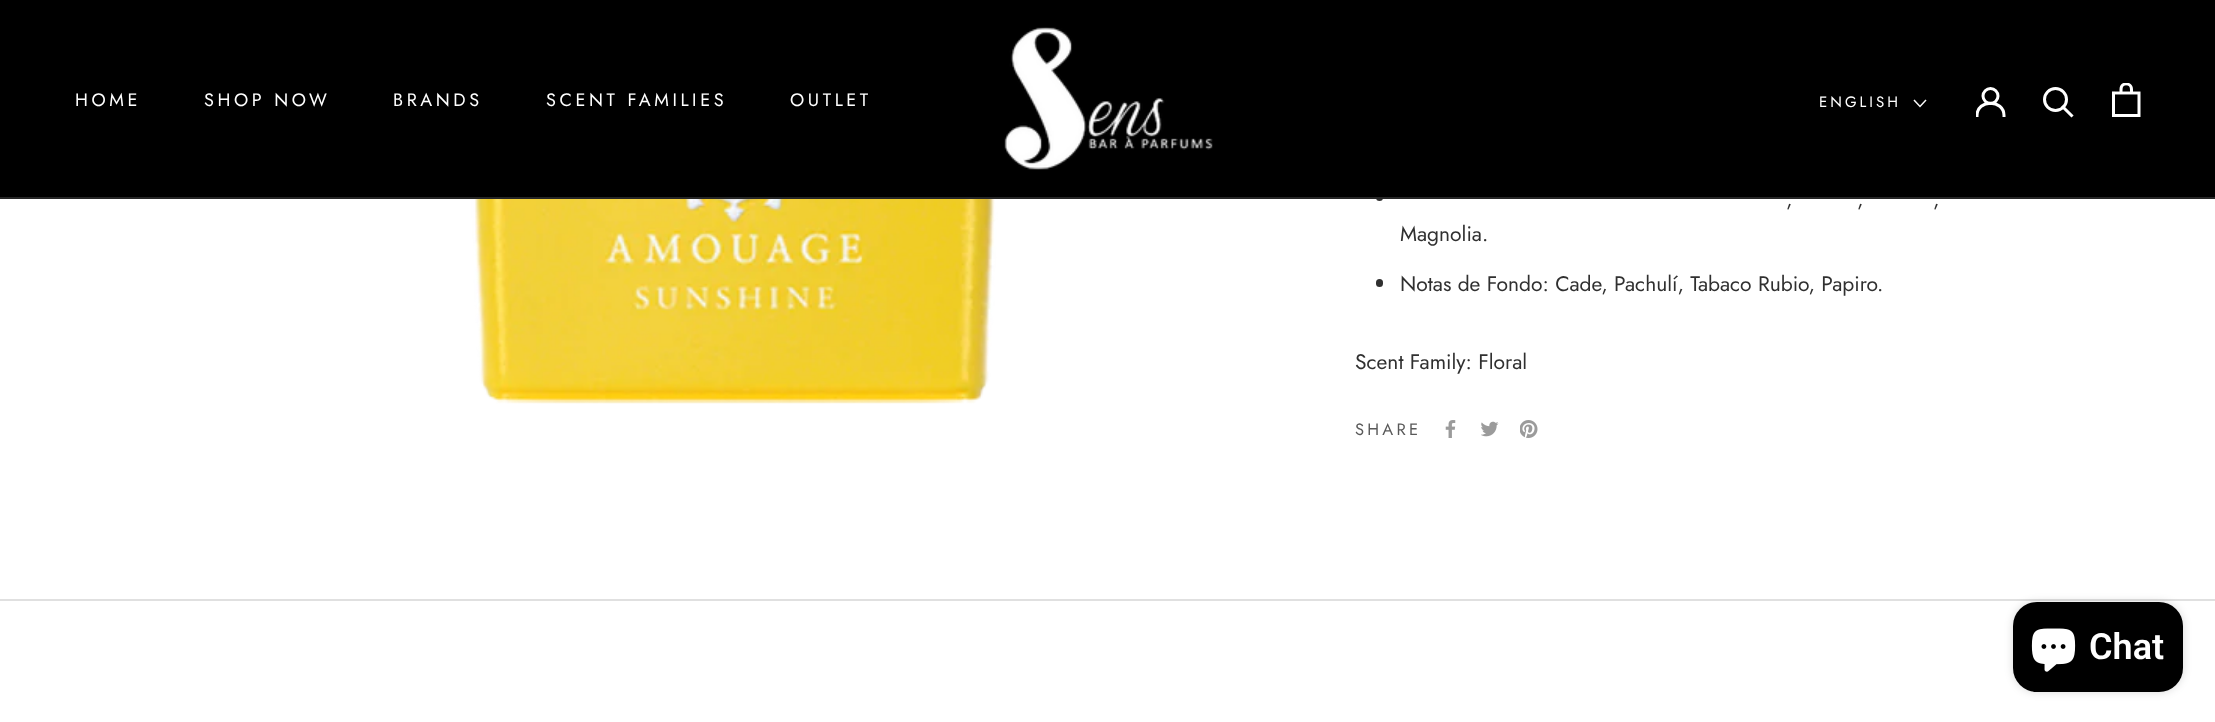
<svg xmlns="http://www.w3.org/2000/svg" width="2215" height="722" viewBox="0 0 2215 722">
  <style>
    .t1 { font: 18px Jost; letter-spacing: 3.6px; fill: #fff; }
    .t2 { font: 15px Jost; letter-spacing: 3px; fill: #fff; }
    .t3 { font: 21px Jost; fill: #303030; }
    .t4 { font: 16.5px Jost; letter-spacing: 3.25px; fill: #595959; }
    .t5 { font: 600 36px Roboto; fill: #fff; }
  </style>
  <defs>
    <clipPath id="clip1"><rect x="1976" y="87" width="30" height="30"/></clipPath>
  </defs>
  <rect width="100%" height="100%" fill="#fff"/>
  <circle cx="1379.5" cy="197.5" r="3.5" fill="#303030"/>
  <rect x="0" y="0" width="2215" height="197" fill="#000"/>
  <rect x="0" y="197" width="2215" height="2" fill="#262626"/>
  <text x="75" y="106" class="t1">HOME</text>
  <text x="204" y="106" class="t1">SHOP NOW</text>
  <text x="393" y="106" class="t1">BRANDS</text>
  <text x="546" y="106" class="t1">SCENT FAMILIES</text>
  <text x="790" y="106" class="t1">OUTLET</text>
  <image x="1004" y="27" width="209" height="143" href="images/1.png"/>
  <text x="1819" y="107" class="t2">ENGLISH</text>
  <path d="M1925.5 100.5L1920 106.5L1914.5 100.5" fill="none" stroke="#fafafa" stroke-width="1.5" stroke-linecap="square"/>
  <g clip-path="url(#clip1)">
    <path d="M1977 115.5C1977 99 2004 99 2004 115.5" fill="none" stroke="#fff" stroke-width="3" stroke-linecap="square"/>
  </g>
  <circle cx="1990.5" cy="96" r="7.5" fill="none" stroke="#fff" stroke-width="3"/>
  <path d="M2071.5 115.5L2063 107" fill="none" stroke="#fff" stroke-width="3" stroke-linecap="square"/>
  <circle cx="2055.5" cy="99.5" r="11" fill="none" stroke="#fff" stroke-width="3"/>
  <image x="2112" y="83" width="29" height="34" href="images/2.png"/>
  <image x="471" y="199" width="527" height="205" href="images/3.png"/>
  <text x="1786" y="206" class="t3">,</text>
  <text x="1857" y="206" class="t3">,</text>
  <text x="1933" y="206" class="t3">,</text>
  <text x="1400" y="241" class="t3">Magnolia.</text>
  <rect x="1376" y="279" width="7" height="8" rx="3.5" fill="#303030"/>
  <text x="1400" y="291" class="t3">Notas de Fondo: Cade, Pachulí, Tabaco Rubio, Papiro.</text>
  <text x="1355" y="369" class="t3">Scent Family: Floral</text>
  <text x="1355" y="435" class="t4">SHARE</text>
  <image x="1445" y="420" width="11" height="18" href="images/4.png"/>
  <image x="1481" y="421" width="18" height="16" href="images/5.png"/>
  <image x="1520" y="420" width="18" height="18" href="images/6.png"/>
  <rect x="0" y="599" width="2215" height="2" fill="#e0e0e0"/>
  <rect x="2013" y="602" width="170" height="90" rx="24" fill="#00000026" filter="blur(4px)"/>
  <rect x="2013" y="602" width="170" height="90" rx="24" fill="#000"/>
  <image x="2031" y="628" width="45" height="44" href="images/7.png"/>
  <text x="2089" y="659" class="t5">Chat</text>
</svg>
